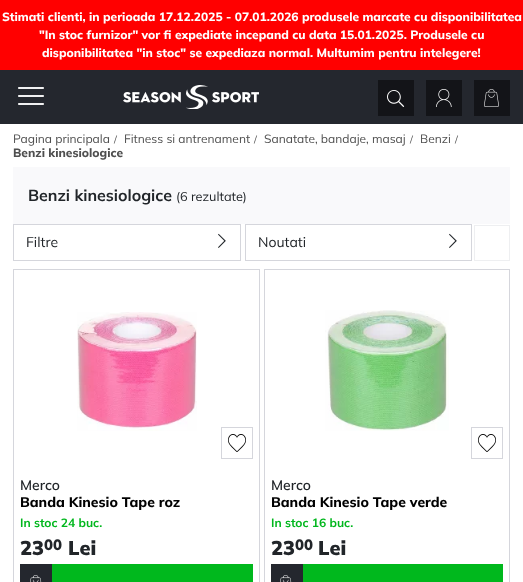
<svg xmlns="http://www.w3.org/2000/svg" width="523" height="582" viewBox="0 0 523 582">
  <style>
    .t1 { font: 800 12px Mulish; fill: #fff; }
    .t2 { font: 12px Mulish; fill: #4f4f4f; }
    .t3 { font: 10px Mulish; fill: #4f4f4f; }
    .t4 { font: 800 12px Mulish; fill: #4f4f4f; }
    .t5 { font: bold 16px Mulish; fill: #212529; }
    .t6 { font: 12.75px Mulish; fill: #212529; }
    .t7 { font: 14px Mulish; fill: #212529; }
    .t8 { font: 600 14px Mulish; fill: #212529; }
    .t9 { font: 800 14px Mulish; fill: #000; }
    .t10 { font: bold 12px Mulish; fill: #00b71d; }
    .t11 { font: 900 20px Mulish; fill: #212529; }
    .t12 { font: 900 15px Mulish; fill: #212529; }
  </style>
  <rect width="100%" height="100%" fill="#fff"/>
  <rect x="0" y="0" width="523" height="70" fill="#f00"/>
  <text x="2" y="21" class="t1">Stimati clienti, in perioada 17.12.2025 - 07.01.2026 produsele marcate cu disponibilitatea</text>
  <text x="39" y="39" class="t1">"In stoc furnizor" vor fi expediate incepand cu data 15.01.2025. Produsele cu</text>
  <text x="42" y="57" class="t1">disponibilitatea "in stoc" se expediaza normal. Multumim pentru intelegere!</text>
  <rect x="0" y="70" width="523" height="54" fill="#24272e"/>
  <image x="18" y="87" width="26" height="18" href="images/1.png"/>
  <image x="123" y="85" width="136" height="24" href="images/2.png"/>
  <rect x="378" y="80" width="36" height="36" fill="#131418"/>
  <image x="387" y="90" width="18" height="17" href="images/3.png"/>
  <rect x="426" y="80" width="36" height="36" fill="#131418"/>
  <image x="436" y="89" width="16" height="18" href="images/4.png"/>
  <rect x="474" y="80" width="36" height="36" fill="#131418"/>
  <image x="484" y="89" width="15" height="18" href="images/5.png"/>
  <text x="13" y="143" class="t2">Pagina principala</text>
  <text x="114" y="143" class="t3">/</text>
  <text x="124" y="143" class="t2">Fitness si antrenament</text>
  <text x="254" y="143" class="t3">/</text>
  <text x="264" y="143" class="t2">Sanatate, bandaje, masaj</text>
  <text x="410" y="143" class="t3">/</text>
  <text x="420" y="143" class="t2">Benzi</text>
  <text x="455" y="143" class="t3">/</text>
  <text x="13" y="157" class="t4">Benzi kinesiologice</text>
  <rect x="13" y="167" width="497" height="57" fill="#f9f9fb"/>
  <text x="28" y="201" class="t5">Benzi kinesiologice</text>
  <text x="176" y="201" class="t6">(6 rezultate)</text>
  <rect x="13.5" y="224.5" width="227" height="36" fill="none" stroke="#d5d6dc"/>
  <text x="26" y="247" class="t7">Filtre</text>
  <image x="218" y="233" width="8" height="15" href="images/6.png"/>
  <rect x="245.5" y="224.5" width="226" height="36" fill="none" stroke="#d5d6dc"/>
  <text x="258" y="247" class="t7">Noutati</text>
  <image x="449" y="233" width="8" height="15" href="images/6.png"/>
  <rect x="474.5" y="225.5" width="35" height="35" fill="none" stroke="#eeeff1"/>
  <rect x="13.5" y="269.5" width="246" height="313" fill="none" stroke="#d5d6dc"/>
  <image x="77" y="312" width="120" height="119" href="images/7.png"/>
  <rect x="221.5" y="427.5" width="31" height="31" fill="none" stroke="#d5d6dc"/>
  <image x="228" y="434" width="18" height="18" href="images/8.png"/>
  <text x="20" y="490" class="t8">Merco</text>
  <text x="20" y="507" class="t9">Banda Kinesio Tape roz</text>
  <text x="20" y="527" class="t10">In stoc 24 buc.</text>
  <text x="20" y="555" class="t11">23</text>
  <text x="44" y="550" class="t12">00</text>
  <text x="68" y="555" class="t11">Lei</text>
  <rect x="52" y="564" width="201" height="18" fill="#00b81d"/>
  <rect x="20" y="564" width="32" height="18" fill="#24272e"/>
  <image x="30" y="575" width="12" height="7" href="images/9.png"/>
  <rect x="264.5" y="269.5" width="245" height="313" fill="none" stroke="#d5d6dc"/>
  <image x="325" y="310" width="124" height="121" href="images/10.png"/>
  <rect x="471.5" y="427.5" width="31" height="31" fill="none" stroke="#d5d6dc"/>
  <image x="478" y="434" width="18" height="18" href="images/8.png"/>
  <text x="271" y="490" class="t8">Merco</text>
  <text x="271" y="507" class="t9">Banda Kinesio Tape verde</text>
  <text x="271" y="527" class="t10">In stoc 16 buc.</text>
  <text x="271" y="555" class="t11">23</text>
  <text x="295" y="550" class="t12">00</text>
  <text x="318" y="555" class="t11">Lei</text>
  <rect x="303" y="564" width="200" height="18" fill="#00b81d"/>
  <rect x="271" y="564" width="32" height="18" fill="#24272e"/>
  <image x="280" y="575" width="12" height="7" href="images/9.png"/>
</svg>
